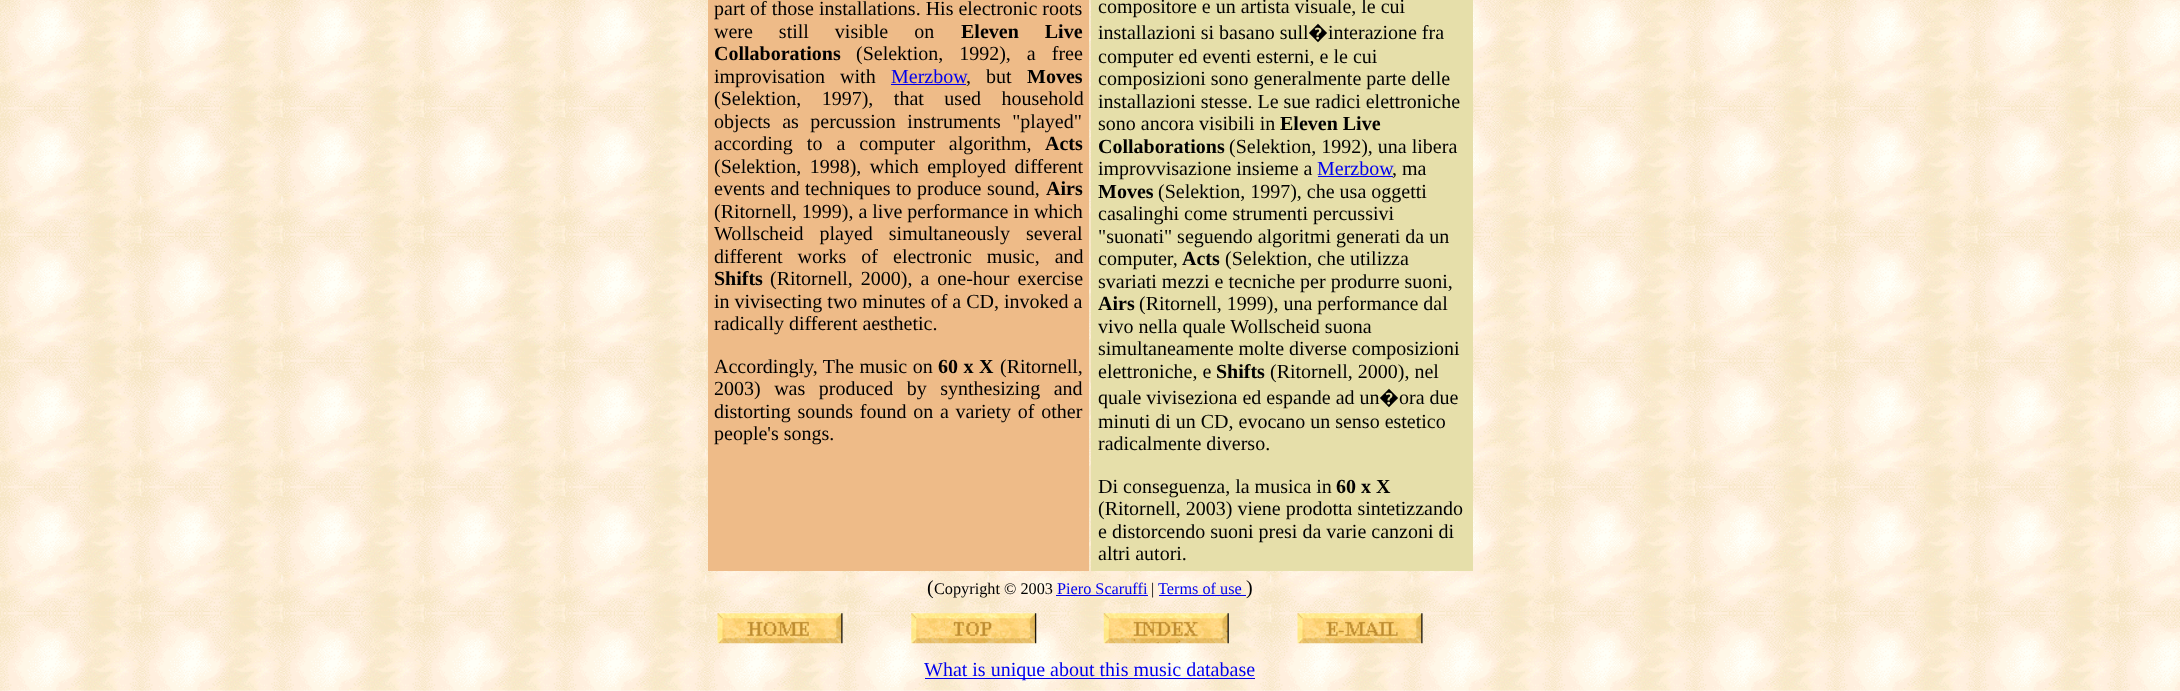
<svg xmlns="http://www.w3.org/2000/svg" width="2180" height="691" viewBox="0 0 2180 691">
  <style>
    .t1 { font: 20px Liberation Serif; fill: #000; }
    .t2 { font: bold 20px Liberation Serif; fill: #000; }
    .t3 { font: 20px Liberation Serif; fill: #00e; }
    .t4 { font: 20px Noto Sans; fill: #000; }
    .t5 { font: 16.25px Liberation Serif; fill: #000; }
    .t6 { font: 16.25px Liberation Serif; fill: #00e; }
  </style>
  <rect width="100%" height="100%" fill="#fff"/>
  <image x="0" y="0" width="2180" height="691" href="images/1.png"/>
  <rect x="708" y="0" width="381" height="571" fill="#eb8"/>
  <text x="714" y="15" class="t1">part of those installations. His electronic roots</text>
  <text x="714" y="38" word-spacing="21" class="t1">were still visible on</text>
  <text x="961" y="38" word-spacing="21" class="t2">Eleven Live</text>
  <text x="714" y="60" class="t2">Collaborations</text>
  <text x="856" y="60" word-spacing="11" class="t1">(Selektion, 1992), a free</text>
  <text x="714" y="83" word-spacing="10" class="t1">improvisation with</text>
  <text x="891" y="83" class="t3">Merzbow</text>
  <rect x="891" y="84" width="75" height="1" fill="#00e"/>
  <text x="966" y="83" word-spacing="10" class="t1">, but</text>
  <text x="1027" y="83" class="t2">Moves</text>
  <text x="714" y="105" word-spacing="15.5" class="t1">(Selektion, 1997), that used household</text>
  <text x="714" y="128" word-spacing="6.5" class="t1">objects as percussion instruments "played"</text>
  <text x="714" y="150" word-spacing="9" class="t1">according to a computer algorithm,</text>
  <text x="1045" y="150" class="t2">Acts</text>
  <text x="714" y="173" word-spacing="3.5" class="t1">(Selektion, 1998), which employed different</text>
  <text x="714" y="195" word-spacing="0.5" class="t1">events and techniques to produce sound,</text>
  <text x="1046" y="195" class="t2">Airs</text>
  <text x="714" y="218" class="t1">(Ritornell, 1999), a live performance in which</text>
  <text x="714" y="240" word-spacing="11" class="t1">Wollscheid played simultaneously several</text>
  <text x="714" y="263" word-spacing="10" class="t1">different works of electronic music, and</text>
  <text x="714" y="285" class="t2">Shifts</text>
  <text x="770" y="285" word-spacing="3" class="t1">(Ritornell, 2000), a one-hour exercise</text>
  <text x="714" y="308" class="t1">in vivisecting two minutes of a CD, invoked a</text>
  <text x="714" y="330" class="t1">radically different aesthetic.</text>
  <text x="714" y="373" word-spacing="0.5" class="t1">Accordingly, The music on</text>
  <text x="938" y="373" word-spacing="0.5" class="t2">60 x X</text>
  <text x="1000" y="373" class="t1">(Ritornell,</text>
  <text x="714" y="395" word-spacing="8.5" class="t1">2003) was produced by synthesizing and</text>
  <text x="714" y="418" word-spacing="1.75" class="t1">distorting sounds found on a variety of other</text>
  <text x="714" y="440" class="t1">people's songs.</text>
  <rect x="1091" y="0" width="382" height="571" fill="#e6dfaa"/>
  <text x="1098" y="13" class="t1">compositore e un artista visuale, le cui</text>
  <text x="1098" y="39" class="t1">installazioni si basano sull</text>
  <text x="1308" y="39" class="t4">�</text>
  <text x="1328" y="39" class="t1">interazione fra</text>
  <text x="1098" y="63" class="t1">computer ed eventi esterni, e le cui</text>
  <text x="1098" y="85" class="t1">composizioni sono generalmente parte delle</text>
  <text x="1098" y="108" class="t1">installazioni stesse. Le sue radici elettroniche</text>
  <text x="1098" y="130" class="t1">sono ancora visibili in</text>
  <text x="1280" y="130" class="t2">Eleven Live</text>
  <text x="1098" y="153" class="t2">Collaborations</text>
  <text x="1229" y="153" class="t1">(Selektion, 1992), una libera</text>
  <text x="1098" y="175" class="t1">improvvisazione insieme a</text>
  <text x="1317" y="175" class="t3">Merzbow</text>
  <rect x="1318" y="176" width="75" height="1" fill="#00e"/>
  <text x="1392" y="175" class="t1">, ma</text>
  <text x="1098" y="198" class="t2">Moves</text>
  <text x="1158" y="198" class="t1">(Selektion, 1997), che usa oggetti</text>
  <text x="1098" y="220" class="t1">casalinghi come strumenti percussivi</text>
  <text x="1098" y="243" class="t1">"suonati" seguendo algoritmi generati da un</text>
  <text x="1098" y="265" class="t1">computer,</text>
  <text x="1182" y="265" class="t2">Acts</text>
  <text x="1225" y="265" class="t1">(Selektion, che utilizza</text>
  <text x="1098" y="288" class="t1">svariati mezzi e tecniche per produrre suoni,</text>
  <text x="1098" y="310" class="t2">Airs</text>
  <text x="1139" y="310" class="t1">(Ritornell, 1999), una performance dal</text>
  <text x="1098" y="333" class="t1">vivo nella quale Wollscheid suona</text>
  <text x="1098" y="355" class="t1">simultaneamente molte diverse composizioni</text>
  <text x="1098" y="378" class="t1">elettroniche, e</text>
  <text x="1216" y="378" class="t2">Shifts</text>
  <text x="1270" y="378" class="t1">(Ritornell, 2000), nel</text>
  <text x="1098" y="404" class="t1">quale viviseziona ed espande ad un</text>
  <text x="1379" y="404" class="t4">�</text>
  <text x="1399" y="404" class="t1">ora due</text>
  <text x="1098" y="428" class="t1">minuti di un CD, evocano un senso estetico</text>
  <text x="1098" y="450" class="t1">radicalmente diverso.</text>
  <text x="1098" y="493" class="t1">Di conseguenza, la musica in</text>
  <text x="1336" y="493" class="t2">60 x X</text>
  <text x="1098" y="515" class="t1">(Ritornell, 2003) viene prodotta sintetizzando</text>
  <text x="1098" y="538" class="t1">e distorcendo suoni presi da varie canzoni di</text>
  <text x="1098" y="560" class="t1">altri autori.</text>
  <text x="927" y="594" class="t1">(</text>
  <text x="934" y="594" class="t5">Copyright © 2003</text>
  <rect x="1056" y="595" width="92" height="1" fill="#00e"/>
  <text x="1057" y="594" class="t6">Piero Scaruffi</text>
  <text x="1151" y="594" class="t5">|</text>
  <text x="1158" y="594" class="t6">Terms of use</text>
  <rect x="1159" y="595" width="87" height="1" fill="#00e"/>
  <text x="1246" y="594" class="t1">)</text>
  <image x="717" y="613" width="126" height="31" href="images/2.png"/>
  <image x="911" y="613" width="126" height="31" href="images/3.png"/>
  <image x="1103" y="613" width="126" height="31" href="images/4.png"/>
  <image x="1297" y="613" width="126" height="31" href="images/5.png"/>
  <rect x="925" y="678" width="330" height="1" fill="#00e"/>
  <text x="924" y="676" class="t3">What is unique about this music database</text>
</svg>
